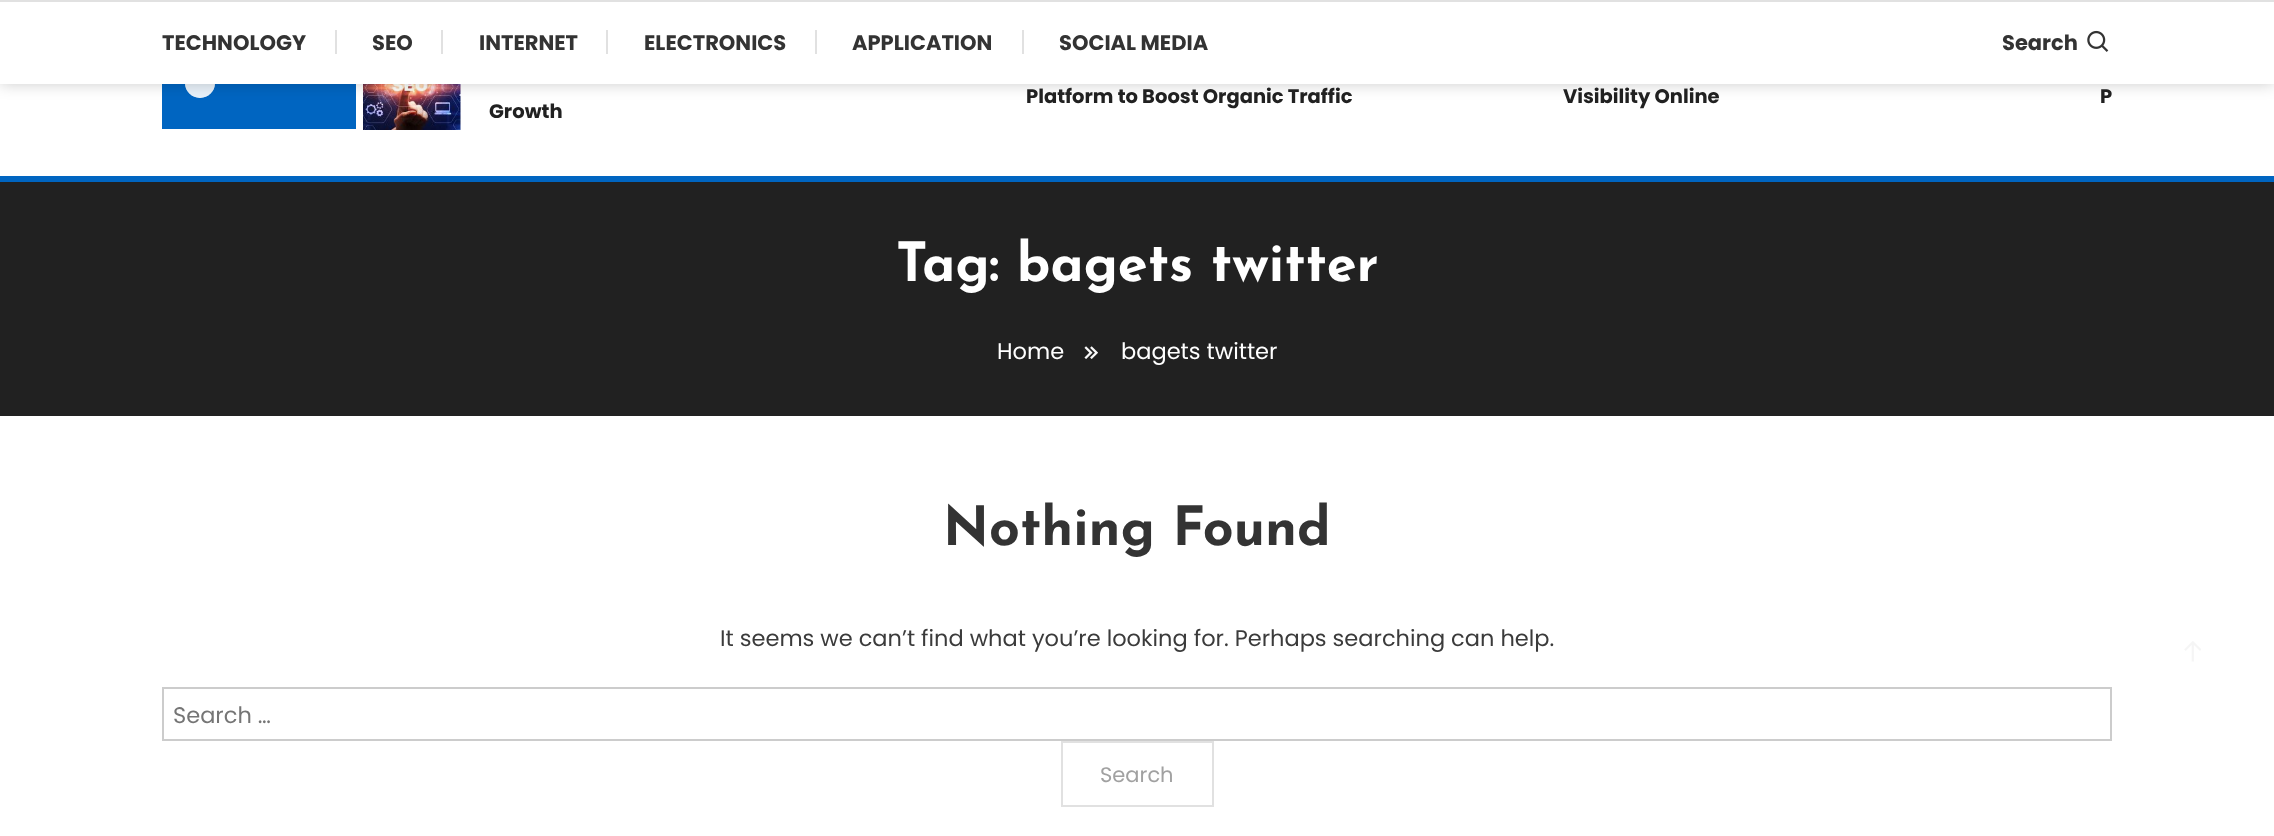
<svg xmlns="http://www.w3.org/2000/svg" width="2274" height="836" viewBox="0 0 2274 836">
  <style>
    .t1 { font: bold 21px Poppins; fill: #333; }
    .t2 { font: bold 19.5px Poppins; fill: #212121; }
    .t3 { font: bold 54px Josefin Sans; fill: #fff; }
    .t4 { font: 22.5px Poppins; fill: #fff; }
    .t5 { font: bold 54px Josefin Sans; fill: #333; }
    .t6 { font: 22.5px Poppins; fill: #3b3b3b; }
    .t7 { font: 22.5px Poppins; fill: #757575; }
    .t8 { font: 21px Poppins; fill: #a1a1a1; }
  </style>
  <rect width="100%" height="100%" fill="#fff"/>
  <rect x="162" y="84" width="194" height="45" fill="#0065c1"/>
  <circle cx="200" cy="83" r="15" fill="#b3d1ec"/>
  <circle cx="200" cy="83" r="15" fill="#ffffffb3"/>
  <image x="363" y="84" width="98" height="46" href="images/2.png"/>
  <rect x="0" y="0" width="2274" height="84" fill="#00000033" filter="blur(7.5px)"/>
  <rect x="0" y="2" width="2274" height="82" fill="#fff"/>
  <rect x="0" y="0" width="2274" height="2" fill="#e1e1e1"/>
  <text x="162" y="50" class="t1">TECHNOLOGY</text>
  <rect x="335" y="30" width="2" height="24" fill="#e1e1e1"/>
  <text x="372" y="50" class="t1">SEO</text>
  <rect x="441" y="30" width="2" height="24" fill="#e1e1e1"/>
  <text x="479" y="50" class="t1">INTERNET</text>
  <rect x="606" y="30" width="2" height="24" fill="#e1e1e1"/>
  <text x="644" y="50" class="t1">ELECTRONICS</text>
  <rect x="815" y="30" width="2" height="24" fill="#e1e1e1"/>
  <text x="852" y="50" class="t1">APPLICATION</text>
  <rect x="1022" y="30" width="2" height="24" fill="#e1e1e1"/>
  <text x="1059" y="50" class="t1">SOCIAL MEDIA</text>
  <text x="2002" y="50" class="t1">Search</text>
  <image x="2087" y="30" width="22" height="22" href="images/1.png"/>
  <text x="1026" y="103" class="t2">Platform to Boost Organic Traffic</text>
  <text x="1563" y="103" class="t2">Visibility Online</text>
  <text x="2100" y="103" class="t2">P</text>
  <text x="489" y="118" class="t2">Growth</text>
  <rect x="0" y="182" width="2274" height="234" fill="#212121"/>
  <rect x="0" y="176" width="2274" height="6" fill="#0065c1"/>
  <text x="896" y="281" class="t3">Tag: bagets twitter</text>
  <text x="997" y="359" class="t4">Home</text>
  <image x="1084" y="346" width="14" height="13" href="images/3.png"/>
  <text x="1121" y="359" class="t4">bagets twitter</text>
  <text x="943" y="545" class="t5">Nothing Found</text>
  <text x="720" y="646" class="t6">It seems we can’t find what you’re looking for. Perhaps searching can help.</text>
  <rect x="163" y="688" width="1948" height="52" fill="none" stroke="#ccc" stroke-width="2"/>
  <text x="173" y="723" class="t7">Search …</text>
  <rect x="1062" y="742" width="151" height="64" fill="none" stroke="#e1e1e1" stroke-width="2"/>
  <text x="1100" y="782" class="t8">Search</text>
  <image x="2184" y="641" width="17" height="21" href="images/4.png"/>
</svg>
